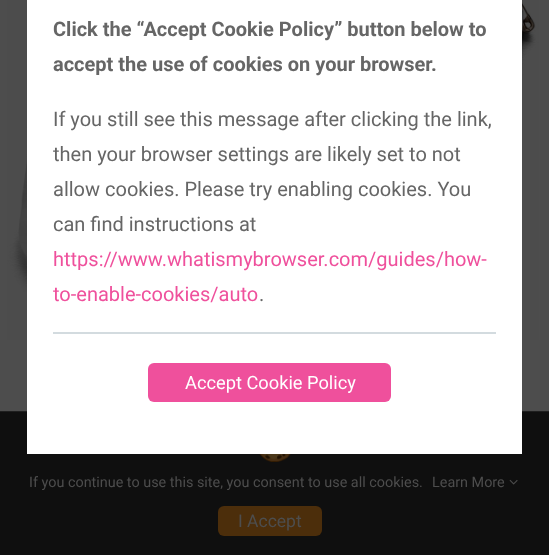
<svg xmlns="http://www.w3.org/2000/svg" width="549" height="555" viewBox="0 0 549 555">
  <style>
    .t1 { font: bold 20px Roboto; fill: #666; }
    .t2 { font: 20px Roboto; fill: #666; }
    .t3 { font: 20px Roboto; fill: #ef509c; }
    .t4 { font: 18.25px Roboto; fill: #fff; }
    .t5 { font: 14.4px Roboto; fill: #4d4d4d; }
    .t6 { font: 17.5px Roboto; fill: #4d4d4d; }
  </style>
  <rect width="100%" height="100%" fill="#4d4d4d"/>
  <image x="7" y="0" width="532" height="340" href="images/1.png"/>
  <rect x="0" y="412" width="549" height="143" fill="#0f0f0f"/>
  <rect x="0" y="411" width="549" height="1" fill="#1f1f1f"/>
  <rect x="27.5" y="-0.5" width="494" height="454" fill="none" stroke="#fff"/>
  <rect x="28" y="0" width="493" height="453" fill="#fff"/>
  <text x="53" y="36" class="t1">Click the “Accept Cookie Policy” button below to</text>
  <text x="53" y="71" class="t1">accept the use of cookies on your browser.</text>
  <text x="53" y="126" class="t2">If you still see this message after clicking the link,</text>
  <text x="53" y="161" class="t2">then your browser settings are likely set to not</text>
  <text x="53" y="196" class="t2">allow cookies. Please try enabling cookies. You</text>
  <text x="53" y="231" class="t2">can find instructions at</text>
  <text x="53" y="266" class="t3">https://www.whatismybrowser.com/guides/how-</text>
  <text x="53" y="301" class="t3">to-enable-cookies/auto</text>
  <text x="259" y="301" class="t2">.</text>
  <rect x="53" y="332" width="443" height="2" fill="#d3dbdf"/>
  <rect x="148" y="363" width="243" height="39" rx="6" fill="#ef509c"/>
  <text x="185" y="389" class="t4">Accept Cookie Policy</text>
  <image x="259" y="454" width="32" height="8" href="images/2.png"/>
  <text x="29" y="487" class="t5">If you continue to use this site, you consent to use all cookies.</text>
  <text x="432" y="487" class="t5">Learn More</text>
  <image x="509" y="479" width="9" height="6" href="images/3.png"/>
  <rect x="218" y="506" width="104" height="30" rx="6" fill="#4c2e0b"/>
  <text x="238" y="527" class="t6">I Accept</text>
</svg>
